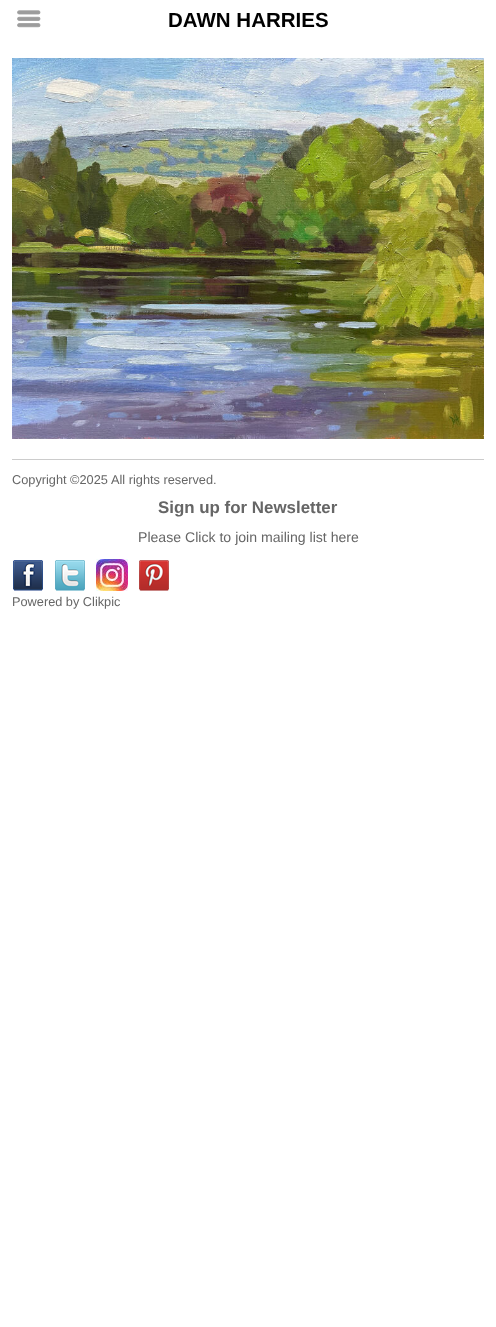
<svg xmlns="http://www.w3.org/2000/svg" width="496" height="1327" viewBox="0 0 496 1327">
  <style>
    .t1 { font: bold 20.5px Liberation Sans; fill: #000; }
    .t2 { font: 12.75px Liberation Sans; fill: #666; }
    .t3 { font: bold 16.9px Liberation Sans; fill: #666; }
    .t4 { font: 14.1px Liberation Sans; fill: #666; }
  </style>
  <rect width="100%" height="100%" fill="#fff"/>
  <image x="17" y="10" width="24" height="18" href="images/1.png"/>
  <text x="168" y="27" class="t1">DAWN HARRIES</text>
  <image x="12" y="58" width="472" height="381" href="images/2.png"/>
  <rect x="12" y="459" width="472" height="1" fill="#ccc"/>
  <text x="12" y="484" class="t2">Copyright ©2025</text>
  <text x="111" y="484" class="t2">All rights reserved.</text>
  <text x="158" y="513" class="t3">Sign up for Newsletter</text>
  <text x="138" y="542" class="t4">Please Click to join mailing list here</text>
  <image x="13" y="560" width="30" height="31" href="images/3.png"/>
  <image x="55" y="560" width="30" height="31" href="images/4.png"/>
  <image x="96" y="559" width="32" height="32" href="images/5.png"/>
  <image x="139" y="560" width="30" height="31" href="images/6.png"/>
  <text x="12" y="606" class="t2">Powered by Clikpic</text>
</svg>
